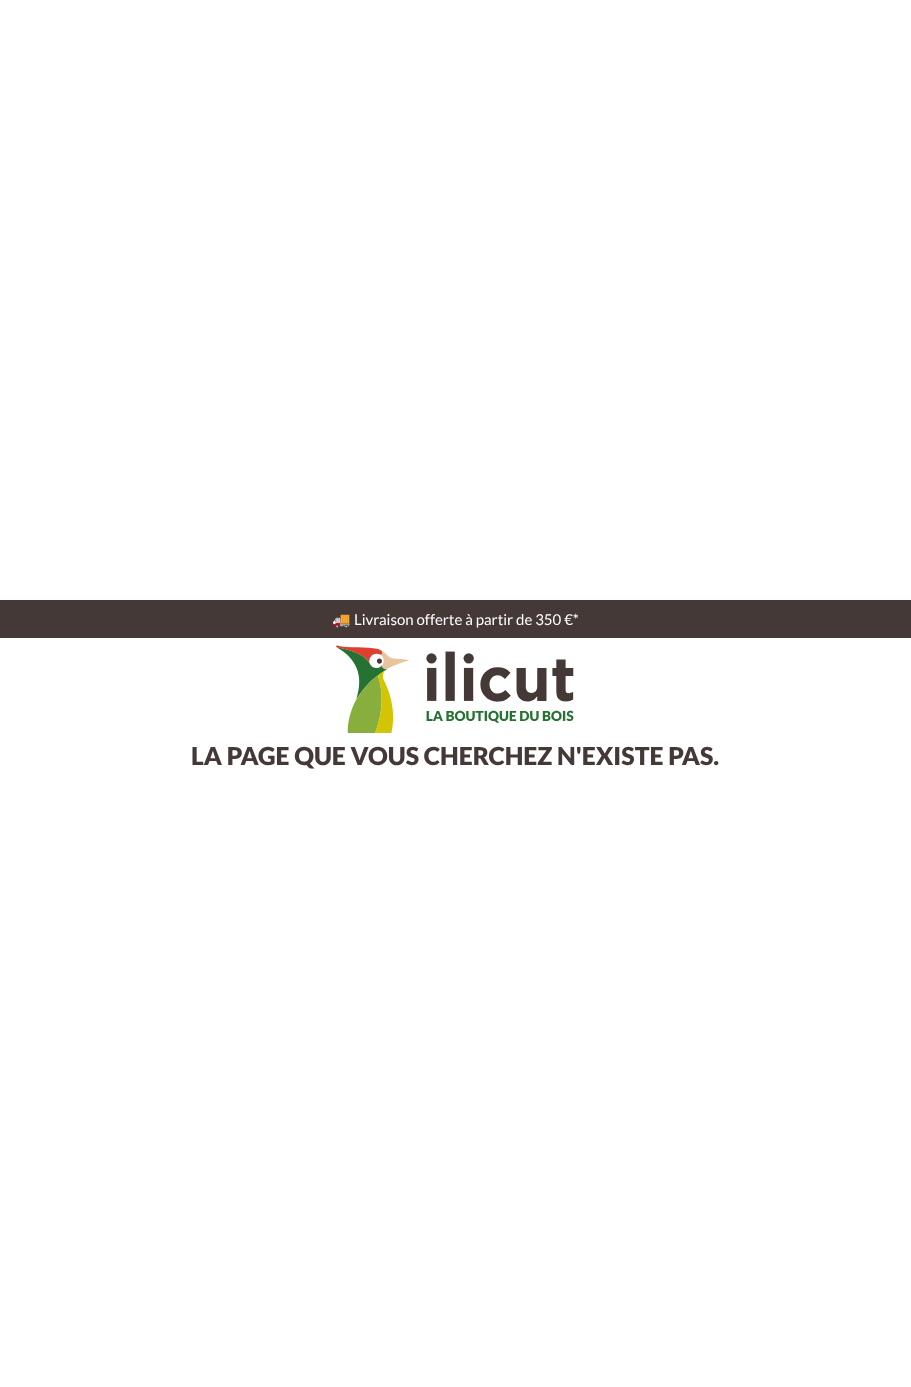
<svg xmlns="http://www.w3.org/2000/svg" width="911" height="1387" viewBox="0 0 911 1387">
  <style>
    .t1 { font: 15px Noto Color Emoji; fill: #fff; }
    .t2 { font: 15px Lato; fill: #fff; }
    .t3 { font: 900 24.7px Lato; fill: #443937; }
  </style>
  <defs>
    <clipPath id="clip1"><rect x="333" y="608" width="246" height="23"/></clipPath>
  </defs>
  <rect width="100%" height="100%" fill="#fff"/>
  <rect x="0" y="600" width="911" height="38" fill="#443937"/>
  <g clip-path="url(#clip1)">
    <text x="332" y="625" class="t1">🚚</text>
  </g>
  <text x="354" y="625" class="t2">Livraison offerte à partir de 350 €*</text>
  <image x="336" y="645" width="238" height="88" href="images/1.png"/>
  <text x="191" y="765" class="t3">LA PAGE QUE VOUS CHERCHEZ N'EXISTE PAS.</text>
</svg>
